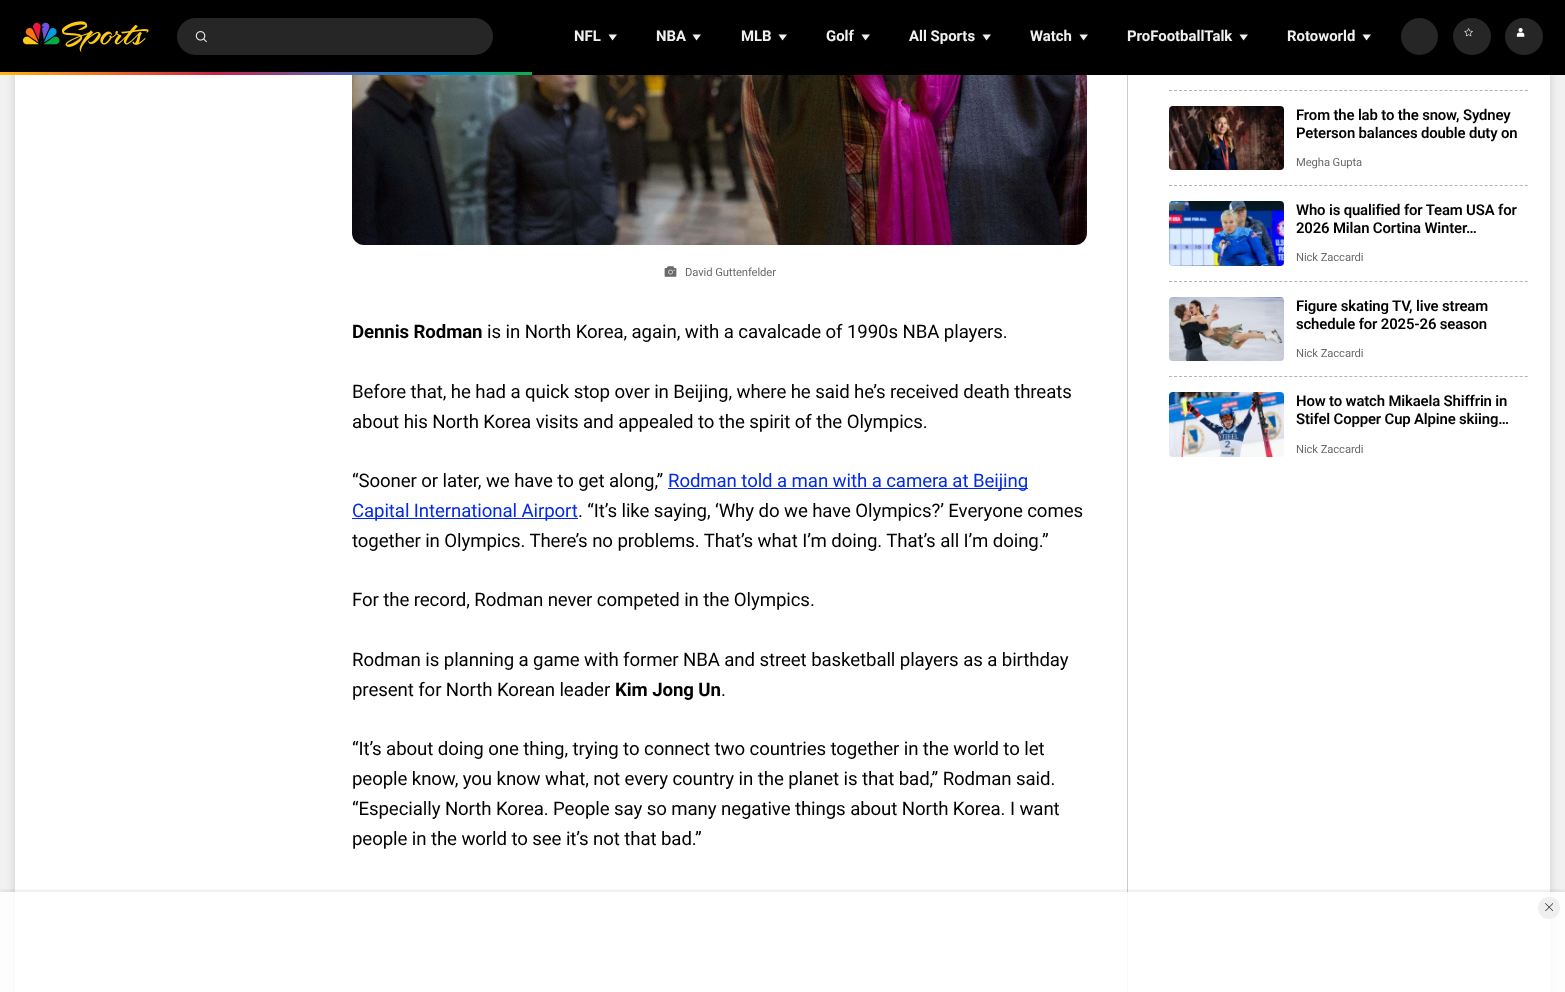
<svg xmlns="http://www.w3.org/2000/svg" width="1565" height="992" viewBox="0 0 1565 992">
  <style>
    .t1 { font: bold 14.9px Roboto; fill: #f0f0f0; }
    .t2 { font: 11.25px Roboto; letter-spacing: -0.1px; fill: #6a6a6a; }
    .t3 { font: bold 18.65px Roboto; letter-spacing: -0.1px; fill: #000; }
    .t4 { font: 18.65px Roboto; letter-spacing: -0.1px; fill: #000; }
    .t5 { font: 18.65px Roboto; letter-spacing: -0.1px; fill: #0329e7; }
    .t6 { font: 600 14.9px Roboto; letter-spacing: -0.15px; fill: #000; }
  </style>
  <defs>
    <clipPath id="clip1"><rect x="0" y="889" width="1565" height="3"/></clipPath>
  </defs>
  <rect width="100%" height="100%" fill="#f1f1f1"/>
  <rect x="15" y="-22" width="1535" height="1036" rx="7" fill="#00000026" filter="blur(5px)"/>
  <rect x="0" y="0" width="1565" height="75" fill="#000"/>
  <image x="22" y="21" width="127" height="31" href="images/1.png"/>
  <rect x="177" y="18" width="316" height="37" rx="18.5" fill="#262626"/>
  <image x="195" y="31" width="12" height="12" href="images/2.png"/>
  <text x="574" y="41" class="t1">NFL</text>
  <path d="M612.5 40.5L608.5 34.5H617Z" fill="#f0f0f0"/>
  <text x="656" y="41" class="t1">NBA</text>
  <path d="M696.5 40.5L692.5 34.5H701Z" fill="#f0f0f0"/>
  <text x="741" y="41" class="t1">MLB</text>
  <path d="M782.5 40.5L778.5 34.5H787Z" fill="#f0f0f0"/>
  <text x="826" y="41" class="t1">Golf</text>
  <path d="M865.5 40.5L861.5 34.5H870Z" fill="#f0f0f0"/>
  <text x="909" y="41" class="t1">All Sports</text>
  <path d="M986.5 40.5L982.5 34.5H991Z" fill="#f0f0f0"/>
  <text x="1030" y="41" class="t1">Watch</text>
  <path d="M1083.5 40.5L1079.5 34.5H1088Z" fill="#f0f0f0"/>
  <text x="1127" y="41" class="t1">ProFootballTalk</text>
  <path d="M1243.5 40.5L1239.5 34.5H1248Z" fill="#f0f0f0"/>
  <text x="1287" y="41" class="t1">Rotoworld</text>
  <path d="M1366.5 40.5L1362.5 34.5H1371Z" fill="#f0f0f0"/>
  <circle cx="1419.5" cy="36.5" r="18.5" fill="#262626"/>
  <rect x="1453" y="18" width="38" height="37" rx="18.5" fill="#262626"/>
  <image x="1464" y="28" width="9" height="9" href="images/3.png"/>
  <rect x="1505" y="18" width="38" height="37" rx="18.5" fill="#262626"/>
  <image x="1516" y="27" width="9" height="10" href="images/4.png"/>
  <image x="0" y="72" width="532" height="3" href="images/5.png"/>
  <rect x="15" y="75" width="1535" height="917" fill="#fff"/>
  <image x="352" y="75" width="735" height="170" href="images/6.png"/>
  <image x="664" y="266" width="13" height="11" href="images/7.png"/>
  <text x="685" y="276" class="t2">David Guttenfelder</text>
  <text x="352" y="338" class="t3">Dennis Rodman</text>
  <text x="487" y="338" class="t4">is in North Korea, again, with a cavalcade of 1990s NBA players.</text>
  <text x="352" y="398" class="t4">Before that, he had a quick stop over in Beijing, where he said he’s received death threats</text>
  <text x="352" y="428" class="t4">about his North Korea visits and appealed to the spirit of the Olympics.</text>
  <text x="352" y="487" class="t4">“Sooner or later, we have to get along,”</text>
  <rect x="668" y="488" width="360" height="1" fill="#0329e7"/>
  <text x="668" y="487" class="t5">Rodman told a man with a camera at Beijing</text>
  <rect x="352" y="518" width="226" height="1" fill="#0329e7"/>
  <text x="352" y="517" class="t5">Capital International Airport</text>
  <text x="578" y="517" class="t4">. “It’s like saying, ‘Why do we have Olympics?’ Everyone comes</text>
  <text x="352" y="547" class="t4">together in Olympics. There’s no problems. That’s what I’m doing. That’s all I’m doing.”</text>
  <text x="352" y="606" class="t4">For the record, Rodman never competed in the Olympics.</text>
  <text x="352" y="666" class="t4">Rodman is planning a game with former NBA and street basketball players as a birthday</text>
  <text x="352" y="696" class="t4">present for North Korean leader</text>
  <text x="615" y="696" class="t3">Kim Jong Un</text>
  <text x="721" y="696" class="t4">.</text>
  <text x="352" y="755" class="t4">“It’s about doing one thing, trying to connect two countries together in the world to let</text>
  <text x="352" y="785" class="t4">people know, you know what, not every country in the planet is that bad,” Rodman said.</text>
  <text x="352" y="815" class="t4">“Especially North Korea. People say so many negative things about North Korea. I want</text>
  <text x="352" y="845" class="t4">people in the world to see it’s not that bad.”</text>
  <rect x="1127" y="75" width="1" height="917" fill="#ccc"/>
  <path d="M1169 90.5H1528" fill="none" stroke="#b3b3b3" stroke-dasharray="3 2.01"/>
  <image x="1169" y="106" width="115" height="64" href="images/8.png"/>
  <text x="1296" y="120" class="t6">From the lab to the snow, Sydney</text>
  <text x="1296" y="138" class="t6">Peterson balances double duty on</text>
  <text x="1296" y="166" class="t2">Megha Gupta</text>
  <path d="M1169 185.5H1528" fill="none" stroke="#b3b3b3" stroke-dasharray="3 2.01"/>
  <image x="1169" y="201" width="115" height="65" href="images/9.png"/>
  <text x="1296" y="215" class="t6">Who is qualified for Team USA for</text>
  <text x="1296" y="233" class="t6">2026 Milan Cortina Winter…</text>
  <text x="1296" y="261" class="t2">Nick Zaccardi</text>
  <path d="M1169 281.5H1528" fill="none" stroke="#b3b3b3" stroke-dasharray="3 2.01"/>
  <image x="1169" y="297" width="115" height="64" href="images/10.png"/>
  <text x="1296" y="311" class="t6">Figure skating TV, live stream</text>
  <text x="1296" y="329" class="t6">schedule for 2025-26 season</text>
  <text x="1296" y="357" class="t2">Nick Zaccardi</text>
  <path d="M1169 376.5H1528" fill="none" stroke="#b3b3b3" stroke-dasharray="3 2.01"/>
  <image x="1169" y="392" width="115" height="65" href="images/11.png"/>
  <text x="1296" y="406" class="t6">How to watch Mikaela Shiffrin in</text>
  <text x="1296" y="424" class="t6">Stifel Copper Cup Alpine skiing…</text>
  <text x="1296" y="453" class="t2">Nick Zaccardi</text>
  <g clip-path="url(#clip1)">
    <rect x="0" y="890" width="1565" height="100" fill="#00000014" filter="blur(2px)"/>
  </g>
  <rect x="0" y="892" width="1565" height="100" fill="#ffffffd9"/>
  <circle cx="1549" cy="908" r="11" fill="#efefef"/>
  <image x="1545" y="903" width="8" height="8" href="images/12.png"/>
</svg>
